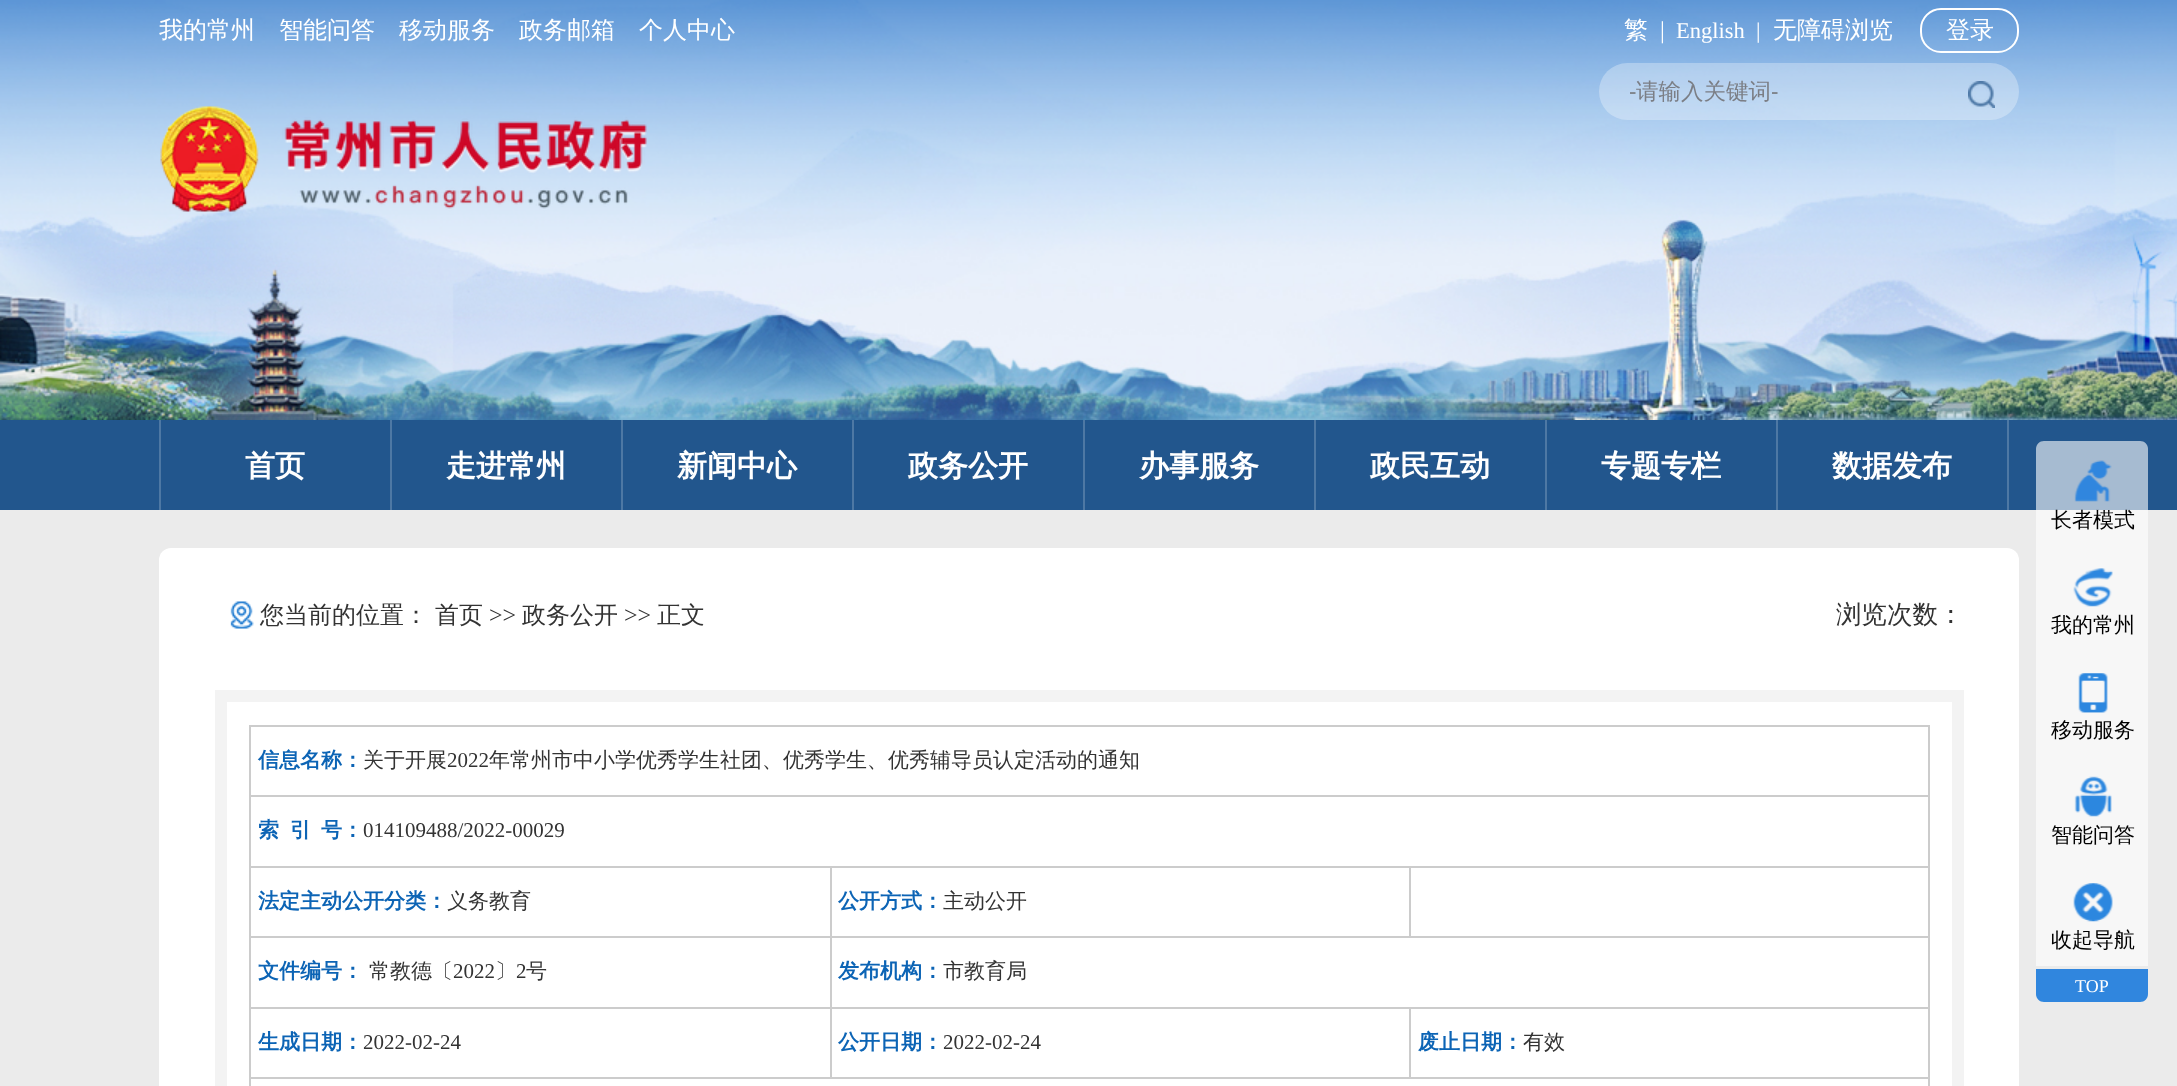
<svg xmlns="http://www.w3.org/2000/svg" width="2177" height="1086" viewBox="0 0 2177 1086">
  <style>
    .t1 { font: 500 24px WenQuanYi Zen Hei; fill: #fff; }
    .t2 { font: 24px Liberation Serif; fill: #fff; }
    .t3 { font: 22.5px Liberation Serif; fill: #fff; }
    .t4 { font: 22.5px Liberation Sans; fill: #7b7e85; }
    .t5 { font: 500 22.5px WenQuanYi Zen Hei; fill: #7b7e85; }
    .t6 { font: bold 30px WenQuanYi Zen Hei; fill: #fff; }
    .t7 { font: 500 24px WenQuanYi Zen Hei; fill: #333; }
    .t8 { font: 24px Liberation Serif; fill: #333; }
    .t9 { font: 500 25.5px WenQuanYi Zen Hei; fill: #333; }
    .t10 { font: bold 21px WenQuanYi Zen Hei; fill: #0c64b5; }
    .t11 { font: 500 21px WenQuanYi Zen Hei; fill: #333; }
    .t12 { font: 21px Liberation Serif; fill: #333; }
    .t13 { font: 500 21px WenQuanYi Zen Hei; fill: #000; }
    .t14 { font: 18px Liberation Serif; fill: #fff; }
  </style>
  <rect width="100%" height="100%" fill="#ebebeb"/>
  <image x="0" y="0" width="2177" height="420" href="images/1.png"/>
  <text x="159" y="38" class="t1">我的常州</text>
  <text x="279" y="38" class="t1">智能问答</text>
  <text x="399" y="38" class="t1">移动服务</text>
  <text x="519" y="38" class="t1">政务邮箱</text>
  <text x="639" y="38" class="t1">个人中心</text>
  <text x="1624" y="38" class="t1">繁</text>
  <text x="1660" y="38" class="t2">|</text>
  <text x="1676" y="38" class="t3" xml:space="preserve">English  |</text>
  <text x="1773" y="38" class="t1">无障碍浏览</text>
  <rect x="1921" y="9" width="97" height="43" rx="20" fill="none" stroke="#fff" stroke-width="2"/>
  <text x="1946" y="38" class="t1">登录</text>
  <rect x="1599" y="63" width="420" height="57" rx="28.5" fill="#ffffff4d"/>
  <text x="1629" y="99" class="t4">-</text>
  <text x="1636" y="99" class="t5">请输入关键词</text>
  <text x="1771" y="99" class="t4">-</text>
  <image x="1968" y="81" width="27" height="27" href="images/2.png"/>
  <image x="160" y="106" width="487" height="106" href="images/3.png"/>
  <rect x="0" y="420" width="2177" height="90" fill="#22568d"/>
  <rect x="159" y="420" width="2" height="90" fill="#4e78a4"/>
  <text x="245" y="476" class="t6">首页</text>
  <rect x="390" y="420" width="2" height="90" fill="#4e78a4"/>
  <text x="446" y="476" class="t6">走进常州</text>
  <rect x="621" y="420" width="2" height="90" fill="#4e78a4"/>
  <text x="677" y="476" class="t6">新闻中心</text>
  <rect x="852" y="420" width="2" height="90" fill="#4e78a4"/>
  <text x="908" y="476" class="t6">政务公开</text>
  <rect x="1083" y="420" width="2" height="90" fill="#4e78a4"/>
  <text x="1139" y="476" class="t6">办事服务</text>
  <rect x="1314" y="420" width="2" height="90" fill="#4e78a4"/>
  <text x="1370" y="476" class="t6">政民互动</text>
  <rect x="1545" y="420" width="2" height="90" fill="#4e78a4"/>
  <text x="1601" y="476" class="t6">专题专栏</text>
  <rect x="2007" y="420" width="2" height="90" fill="#4e78a4"/>
  <rect x="1776" y="420" width="2" height="90" fill="#4e78a4"/>
  <text x="1832" y="476" class="t6">数据发布</text>
  <rect x="159" y="548" width="1860" height="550" rx="12" fill="#fff"/>
  <image x="230" y="601" width="24" height="28" href="images/4.png"/>
  <text x="260" y="623" class="t7">您当前的位置：</text>
  <text x="435" y="623" class="t7">首页</text>
  <text x="489" y="623" class="t8">&gt;&gt;</text>
  <text x="522" y="623" class="t7">政务公开</text>
  <text x="624" y="623" class="t8">&gt;&gt;</text>
  <text x="657" y="623" class="t7">正文</text>
  <text x="1836" y="623" class="t9">浏览次数：</text>
  <rect x="227" y="690" width="1725" height="12" fill="#f3f3f3"/>
  <rect x="1952" y="690" width="12" height="396" fill="#f3f3f3"/>
  <rect x="215" y="690" width="12" height="396" fill="#f3f3f3"/>
  <rect x="249" y="725" width="1680" height="2" fill="#ccc"/>
  <rect x="249" y="795" width="1680" height="2" fill="#ccc"/>
  <rect x="1409" y="866" width="520" height="2" fill="#ccc"/>
  <rect x="830" y="936" width="1099" height="2" fill="#ccc"/>
  <rect x="1409" y="1007" width="520" height="2" fill="#ccc"/>
  <rect x="249" y="1077" width="1680" height="2" fill="#ccc"/>
  <rect x="1928" y="1077" width="2" height="9" fill="#ccc"/>
  <rect x="1928" y="1007" width="2" height="72" fill="#ccc"/>
  <rect x="1928" y="936" width="2" height="72" fill="#ccc"/>
  <rect x="1928" y="866" width="2" height="72" fill="#ccc"/>
  <rect x="1928" y="795" width="2" height="72" fill="#ccc"/>
  <rect x="1928" y="725" width="2" height="72" fill="#ccc"/>
  <rect x="1409" y="866" width="2" height="72" fill="#ccc"/>
  <rect x="830" y="866" width="580" height="2" fill="#ccc"/>
  <rect x="1409" y="1007" width="2" height="72" fill="#ccc"/>
  <rect x="830" y="1007" width="580" height="2" fill="#ccc"/>
  <rect x="830" y="1007" width="2" height="72" fill="#ccc"/>
  <rect x="249" y="1007" width="582" height="2" fill="#ccc"/>
  <rect x="830" y="936" width="2" height="72" fill="#ccc"/>
  <rect x="249" y="936" width="582" height="2" fill="#ccc"/>
  <rect x="830" y="866" width="2" height="72" fill="#ccc"/>
  <rect x="249" y="866" width="582" height="2" fill="#ccc"/>
  <rect x="249" y="1077" width="2" height="9" fill="#ccc"/>
  <rect x="249" y="1007" width="2" height="72" fill="#ccc"/>
  <rect x="249" y="936" width="2" height="72" fill="#ccc"/>
  <rect x="249" y="866" width="2" height="72" fill="#ccc"/>
  <rect x="249" y="795" width="2" height="72" fill="#ccc"/>
  <rect x="249" y="725" width="2" height="72" fill="#ccc"/>
  <text x="258" y="767" class="t10">信息名称：</text>
  <text x="363" y="767" class="t11">关于开展</text>
  <text x="447" y="767" class="t12">2022</text>
  <text x="489" y="767" class="t11">年常州市中小学优秀学生社团、优秀学生、优秀辅导员认定活动的通知</text>
  <text x="258" y="837" class="t10">索</text>
  <text x="290" y="837" class="t10">引</text>
  <text x="321" y="837" class="t10">号：</text>
  <text x="363" y="837" class="t12">014109488/2022-00029</text>
  <text x="258" y="908" class="t10">法定主动公开分类：</text>
  <text x="447" y="908" class="t11">义务教育</text>
  <text x="838" y="908" class="t10">公开方式：</text>
  <text x="943" y="908" class="t11">主动公开</text>
  <text x="258" y="978" class="t10">文件编号：</text>
  <text x="369" y="978" class="t11">常教德〔</text>
  <text x="453" y="978" class="t12">2022</text>
  <text x="495" y="978" class="t11">〕</text>
  <text x="516" y="978" class="t12">2</text>
  <text x="526" y="978" class="t11">号</text>
  <text x="838" y="978" class="t10">发布机构：</text>
  <text x="943" y="978" class="t11">市教育局</text>
  <text x="258" y="1049" class="t10">生成日期：</text>
  <text x="363" y="1049" class="t12">2022-02-24</text>
  <text x="838" y="1049" class="t10">公开日期：</text>
  <text x="943" y="1049" class="t12">2022-02-24</text>
  <text x="1418" y="1049" class="t10">废止日期：</text>
  <text x="1523" y="1049" class="t11">有效</text>
  <path d="M2044 441H2140C2144.5 441 2148 444.5 2148 449V966H2036V449C2036 444.5 2039.5 441 2044 441Z" fill="#ffffff99"/>
  <image x="2074" y="460" width="38" height="42" href="images/5.png"/>
  <text x="2051" y="527" class="t13">长者模式</text>
  <image x="2073" y="568" width="40" height="39" href="images/6.png"/>
  <text x="2051" y="632" class="t13">我的常州</text>
  <image x="2078" y="673" width="30" height="40" href="images/7.png"/>
  <text x="2051" y="737" class="t13">移动服务</text>
  <image x="2074" y="776" width="38" height="41" href="images/8.png"/>
  <text x="2051" y="842" class="t13">智能问答</text>
  <image x="2073" y="883" width="40" height="39" href="images/9.png"/>
  <text x="2051" y="947" class="t13">收起导航</text>
  <path d="M2036 969H2148V994C2148 998.5 2144.5 1002 2140 1002H2044C2039.5 1002 2036 998.5 2036 994Z" fill="#3086de"/>
  <text x="2075" y="992" class="t14">TOP</text>
</svg>
